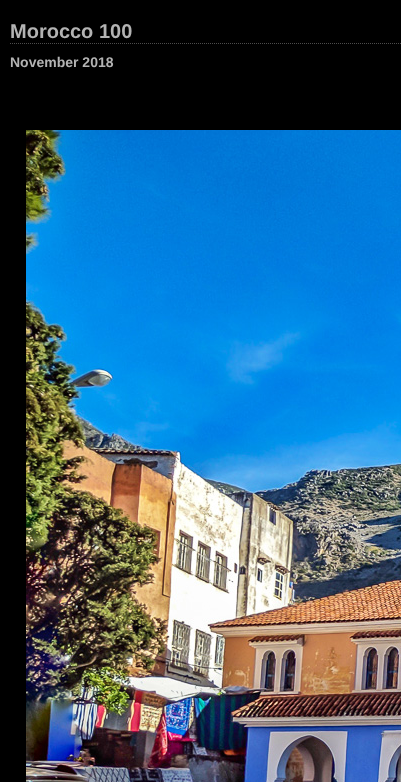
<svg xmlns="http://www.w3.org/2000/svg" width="401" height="782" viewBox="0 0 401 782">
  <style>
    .t1 { font: bold 20px Liberation Sans; fill: #b3b3b3; }
    .t2 { font: bold 14px Liberation Sans; fill: #b3b3b3; }
  </style>
  <rect width="100%" height="100%" fill="#000"/>
  <path d="M10 43.5H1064" fill="none" stroke="#4c4c4c" stroke-dasharray="1 1"/>
  <text x="10" y="38" class="t1">Morocco 100</text>
  <text x="10" y="67" class="t2">November 2018</text>
  <image x="26" y="130" width="375" height="652" href="images/1.png"/>
</svg>
